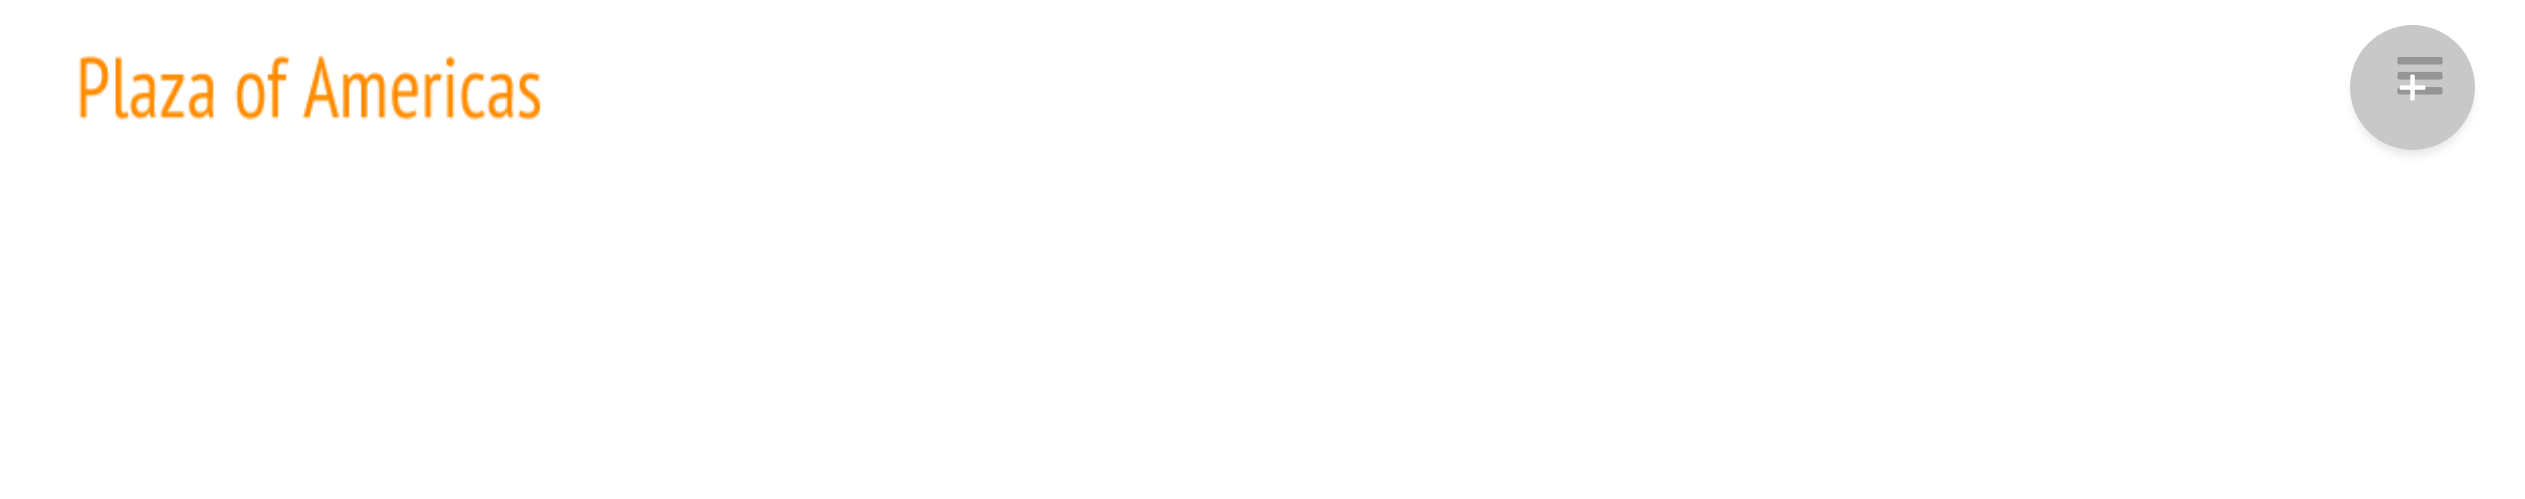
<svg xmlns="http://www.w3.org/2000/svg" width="2525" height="499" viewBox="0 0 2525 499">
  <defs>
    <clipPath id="clip1"><path d="M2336 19H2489V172H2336ZM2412.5 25C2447 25 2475 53 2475 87.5C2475 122 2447 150 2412.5 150C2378 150 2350 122 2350 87.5C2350 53 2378 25 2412.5 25Z" clip-rule="evenodd"/></clipPath>
  </defs>
  <rect width="100%" height="100%" fill="#fff"/>
  <image x="2397" y="57" width="46" height="38" href="images/3.png"/>
  <g clip-path="url(#clip1)">
    <rect x="2355" y="38" width="115" height="115" rx="57.5" fill="#00000024" filter="blur(6px)"/>
  </g>
  <circle cx="2412.5" cy="87.5" r="62.5" fill="#bababacc"/>
  <image x="2399" y="74" width="27" height="27" href="images/1.png"/>
  <image x="78" y="55" width="463" height="67" href="images/2.png"/>
</svg>
